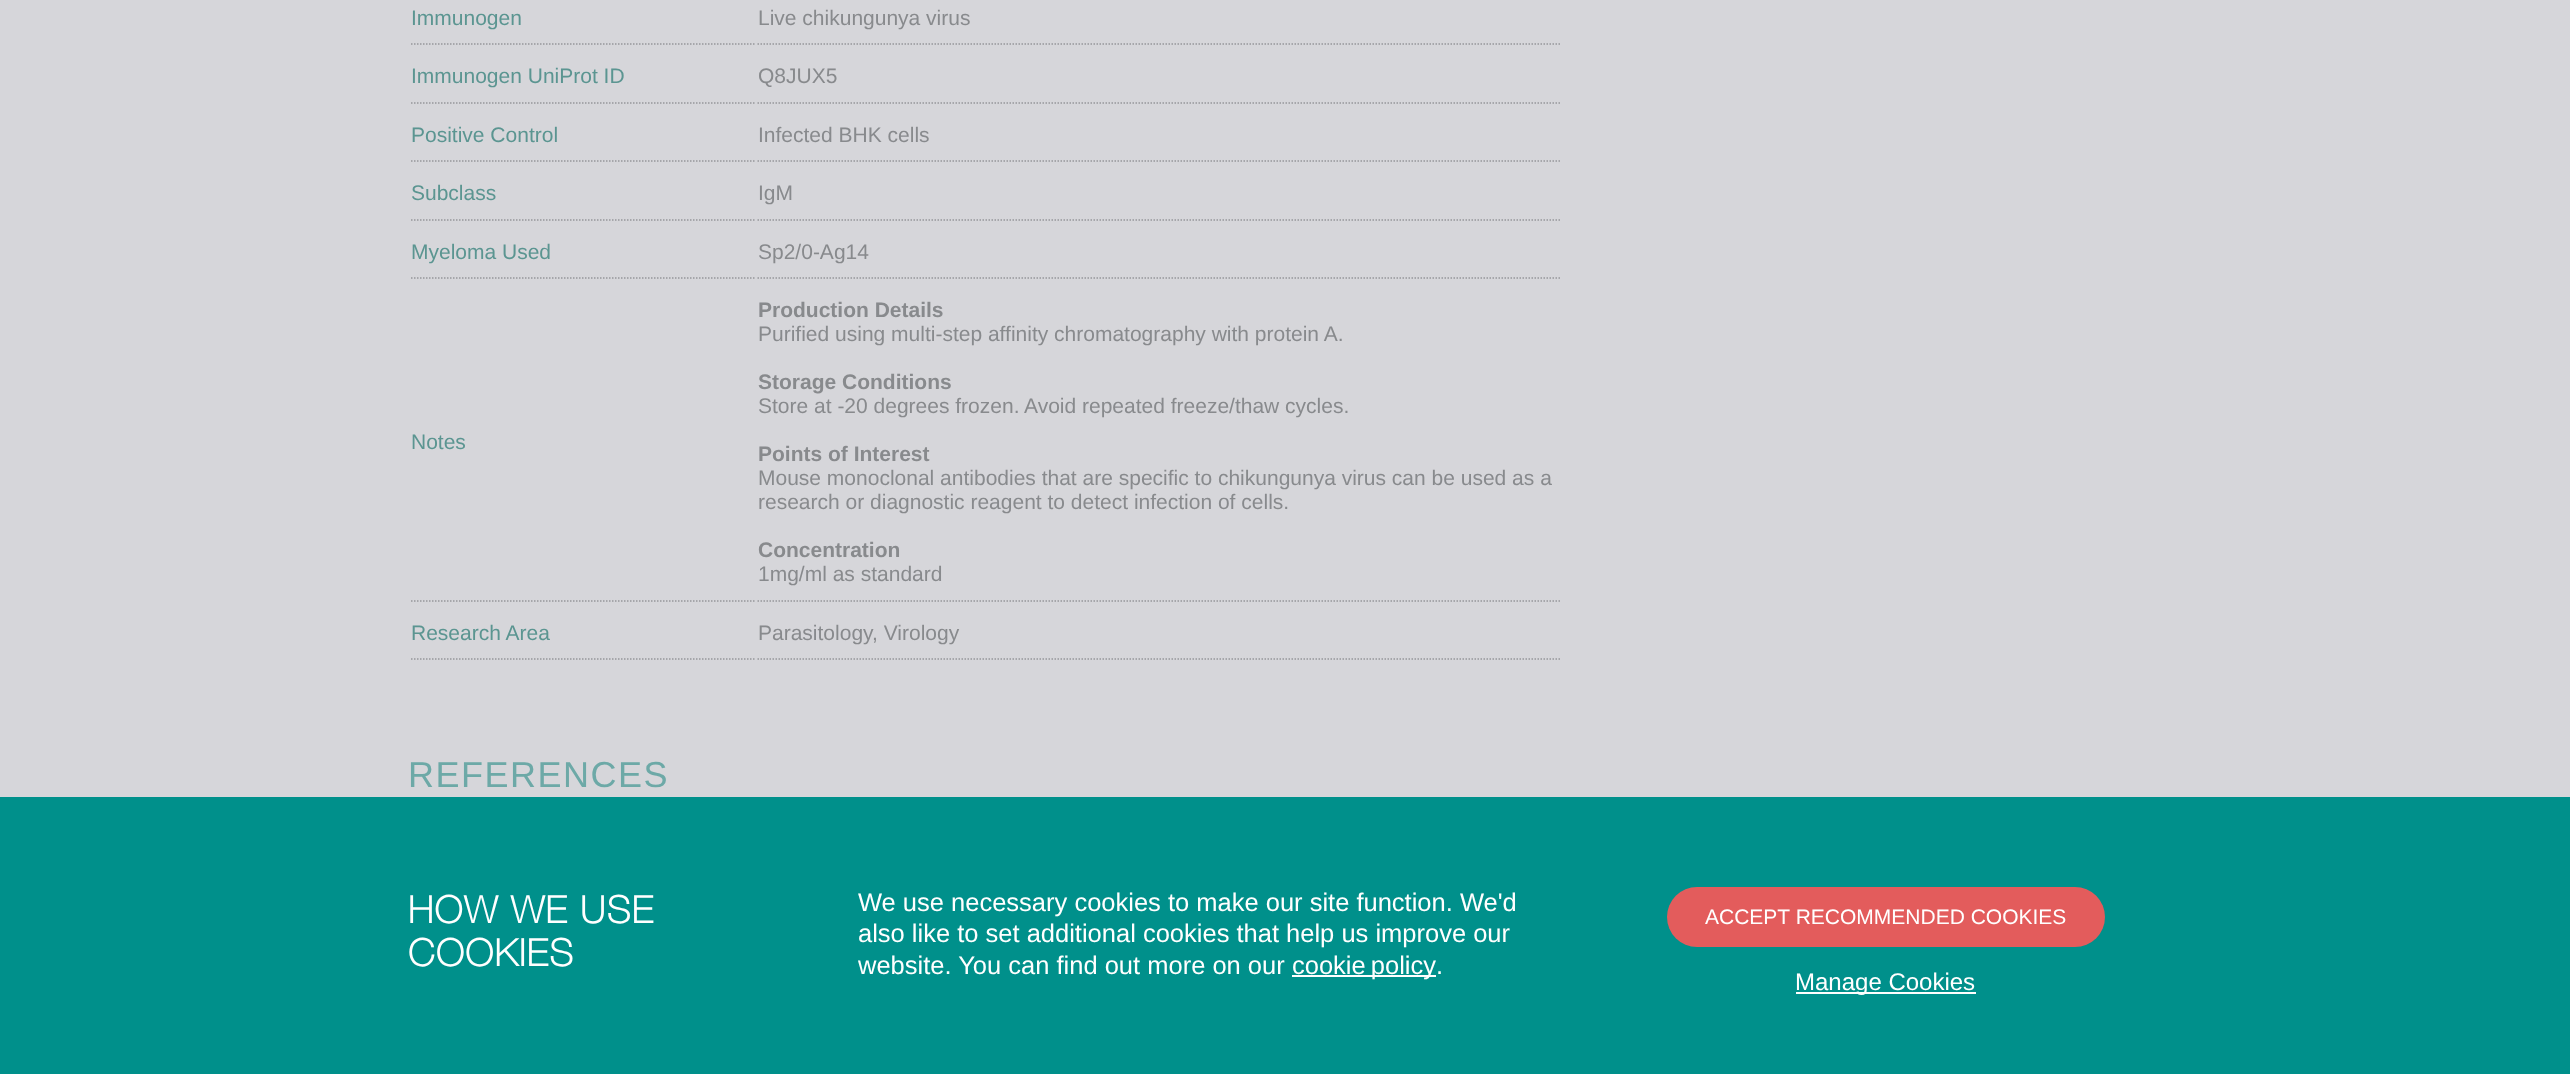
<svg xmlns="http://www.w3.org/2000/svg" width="2570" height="1074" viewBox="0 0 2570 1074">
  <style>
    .t1 { font: 21px Liberation Sans; fill: #5b9591; }
    .t2 { font: 21px Liberation Sans; fill: #888a8d; }
    .t3 { font: bold 21px Liberation Sans; fill: #888a8d; }
    .t4 { font: 36px Liberation Sans; letter-spacing: 1.5px; fill: #6da9a7; }
    .t5 { font: bold 37.5px 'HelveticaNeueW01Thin'; letter-spacing: 1.5px; fill: #fff; }
    .t6 { font: 25.5px Liberation Sans; fill: #fff; }
    .t7 { font: 21px Liberation Sans; fill: #fff; }
    .t8 { font: 24px Liberation Sans; fill: #fff; }
  </style>
  <rect width="100%" height="100%" fill="#d6d6da"/>
  <path d="M411 44H754.5" fill="none" stroke="#96979b" stroke-width="1.5" stroke-dasharray="1.5 1.5"/>
  <text x="411" y="25" class="t1">Immunogen</text>
  <path d="M757.5 44H1560" fill="none" stroke="#96979b" stroke-width="1.5" stroke-dasharray="1.5 1.5"/>
  <text x="758" y="25" class="t2">Live chikungunya virus</text>
  <path d="M411 103H754.5" fill="none" stroke="#96979b" stroke-width="1.5" stroke-dasharray="1.5 1.5"/>
  <text x="411" y="83" class="t1">Immunogen UniProt ID</text>
  <path d="M757.5 103H1560" fill="none" stroke="#96979b" stroke-width="1.5" stroke-dasharray="1.5 1.5"/>
  <text x="758" y="83" class="t2">Q8JUX5</text>
  <path d="M411 161H754.5" fill="none" stroke="#96979b" stroke-width="1.5" stroke-dasharray="1.5 1.5"/>
  <text x="411" y="142" class="t1">Positive Control</text>
  <path d="M757.5 161H1560" fill="none" stroke="#96979b" stroke-width="1.5" stroke-dasharray="1.5 1.5"/>
  <text x="758" y="142" class="t2">Infected BHK cells</text>
  <path d="M411 220H754.5" fill="none" stroke="#96979b" stroke-width="1.5" stroke-dasharray="1.5 1.5"/>
  <text x="411" y="200" class="t1">Subclass</text>
  <path d="M757.5 220H1560" fill="none" stroke="#96979b" stroke-width="1.5" stroke-dasharray="1.5 1.5"/>
  <text x="758" y="200" class="t2">IgM</text>
  <path d="M411 278H754.5" fill="none" stroke="#96979b" stroke-width="1.5" stroke-dasharray="1.5 1.5"/>
  <text x="411" y="259" class="t1">Myeloma Used</text>
  <path d="M757.5 278H1560" fill="none" stroke="#96979b" stroke-width="1.5" stroke-dasharray="1.5 1.5"/>
  <text x="758" y="259" class="t2">Sp2/0-Ag14</text>
  <path d="M411 601H754.5" fill="none" stroke="#96979b" stroke-width="1.5" stroke-dasharray="1.5 1.5"/>
  <text x="411" y="449" class="t1">Notes</text>
  <path d="M757.5 601H1560" fill="none" stroke="#96979b" stroke-width="1.5" stroke-dasharray="1.5 1.5"/>
  <text x="758" y="317" class="t3">Production Details</text>
  <text x="758" y="341" class="t2">Purified using multi-step affinity chromatography with protein A.</text>
  <text x="758" y="389" class="t3">Storage Conditions</text>
  <text x="758" y="413" class="t2">Store at -20 degrees frozen.</text>
  <text x="1024" y="413" class="t2">Avoid repeated freeze/thaw cycles.</text>
  <text x="758" y="461" class="t3">Points of Interest</text>
  <text x="758" y="485" class="t2">Mouse monoclonal antibodies that are specific to chikungunya virus can be used as a</text>
  <text x="758" y="509" class="t2">research or diagnostic reagent to detect infection of cells.</text>
  <text x="758" y="557" class="t3">Concentration</text>
  <text x="758" y="581" class="t2">1mg/ml as standard</text>
  <path d="M411 659H754.5" fill="none" stroke="#96979b" stroke-width="1.5" stroke-dasharray="1.5 1.5"/>
  <text x="411" y="640" class="t1">Research Area</text>
  <path d="M757.5 659H1560" fill="none" stroke="#96979b" stroke-width="1.5" stroke-dasharray="1.5 1.5"/>
  <text x="758" y="640" class="t2">Parasitology, Virology</text>
  <text x="408" y="787" class="t4">REFERENCES</text>
  <rect x="0" y="797" width="2570" height="277" fill="#00908b"/>
  <text x="408" y="923" class="t5">HOW WE USE</text>
  <text x="408" y="966" class="t5">COOKIES</text>
  <text x="858" y="911" class="t6">We use necessary cookies to make our site function. We'd</text>
  <text x="858" y="942" class="t6">also like to set additional cookies that help us improve our</text>
  <text x="858" y="974" class="t6">website. You can find out more on our</text>
  <rect x="1292" y="975" width="144" height="2" fill="#fff"/>
  <text x="1292" y="974" word-spacing="-2" class="t6">cookie policy</text>
  <text x="1436" y="974" class="t6">.</text>
  <rect x="1667" y="887" width="438" height="60" rx="30" fill="#e35c5c"/>
  <text x="1705" y="924" class="t7">ACCEPT RECOMMENDED COOKIES</text>
  <rect x="1796" y="992" width="180" height="2" fill="#fff"/>
  <text x="1795" y="990" class="t8">Manage Cookies</text>
</svg>
